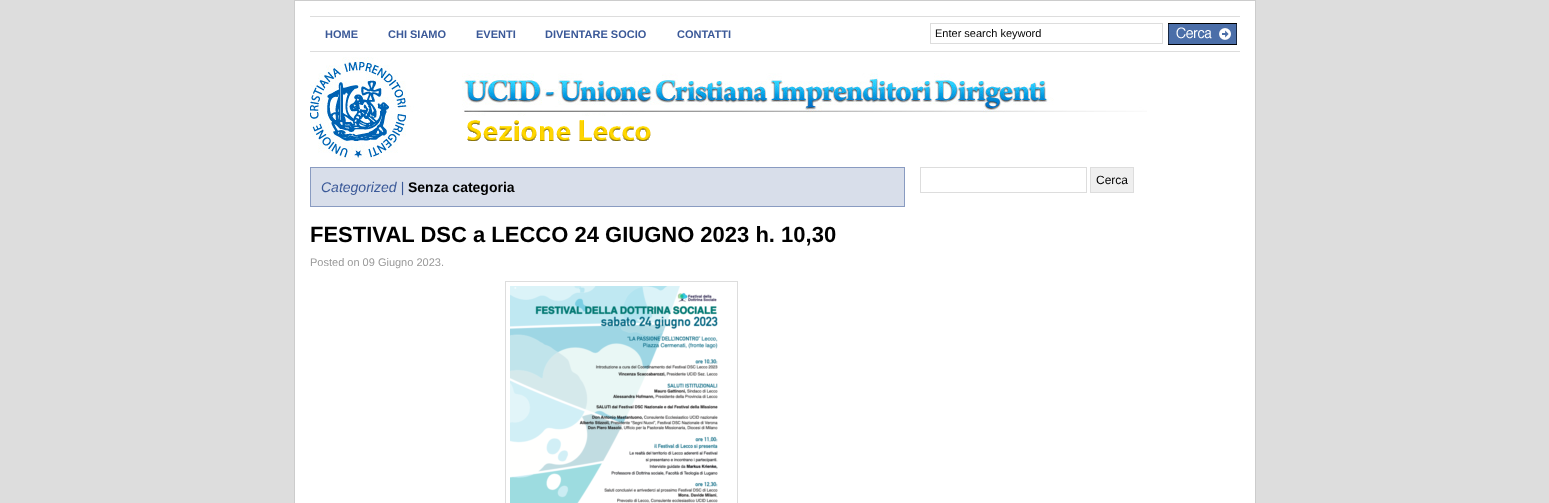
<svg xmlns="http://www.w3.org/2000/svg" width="1549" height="503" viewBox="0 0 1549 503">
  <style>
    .t1 { font: bold 11px Liberation Sans; fill: #3b5998; }
    .t2 { font: 11px Liberation Sans; fill: #000; }
    .t3 { font: 12px Liberation Sans; fill: #000; }
    .t4 { font: italic 14px Liberation Sans; fill: #3b5998; }
    .t5 { font: bold 14px Liberation Sans; fill: #000; }
    .t6 { font: bold 22px Liberation Sans; fill: #000; }
    .t7 { font: 11px Liberation Sans; fill: #999; }
  </style>
  <rect width="100%" height="100%" fill="#ddd"/>
  <rect x="294.5" y="0.5" width="961" height="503" fill="#fff" stroke="#ccc"/>
  <rect x="310" y="16" width="930" height="1" fill="#ddd"/>
  <rect x="310" y="51" width="930" height="1" fill="#ddd"/>
  <text x="325" y="38" class="t1">HOME</text>
  <text x="388" y="38" class="t1">CHI SIAMO</text>
  <text x="476" y="38" class="t1">EVENTI</text>
  <text x="545" y="38" class="t1">DIVENTARE SOCIO</text>
  <text x="677" y="38" class="t1">CONTATTI</text>
  <rect x="930.5" y="23.5" width="232" height="20" fill="none" stroke="#ddd"/>
  <text x="935" y="37" class="t2">Enter search keyword</text>
  <image x="1168" y="23" width="69" height="22" href="images/1.png"/>
  <image x="310" y="57" width="837" height="104" href="images/2.png"/>
  <rect x="920.5" y="167.5" width="166" height="25" fill="none" stroke="#ddd"/>
  <rect x="1090.5" y="167.5" width="43" height="25" fill="#efefef" stroke="#ddd"/>
  <text x="1096" y="184" class="t3">Cerca</text>
  <rect x="310.5" y="167.5" width="594" height="39" fill="#d8deea" stroke="#899bc1"/>
  <text x="321" y="192" class="t4">Categorized |</text>
  <text x="408" y="192" class="t5">Senza categoria</text>
  <text x="310" y="242" class="t6">FESTIVAL DSC a LECCO 24 GIUGNO 2023 h. 10,30</text>
  <text x="310" y="266" class="t7">Posted on 09 Giugno 2023.</text>
  <rect x="505.5" y="281.5" width="232" height="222" fill="none" stroke="#ddd"/>
  <image x="510" y="286" width="208" height="217" href="images/3.png"/>
</svg>
